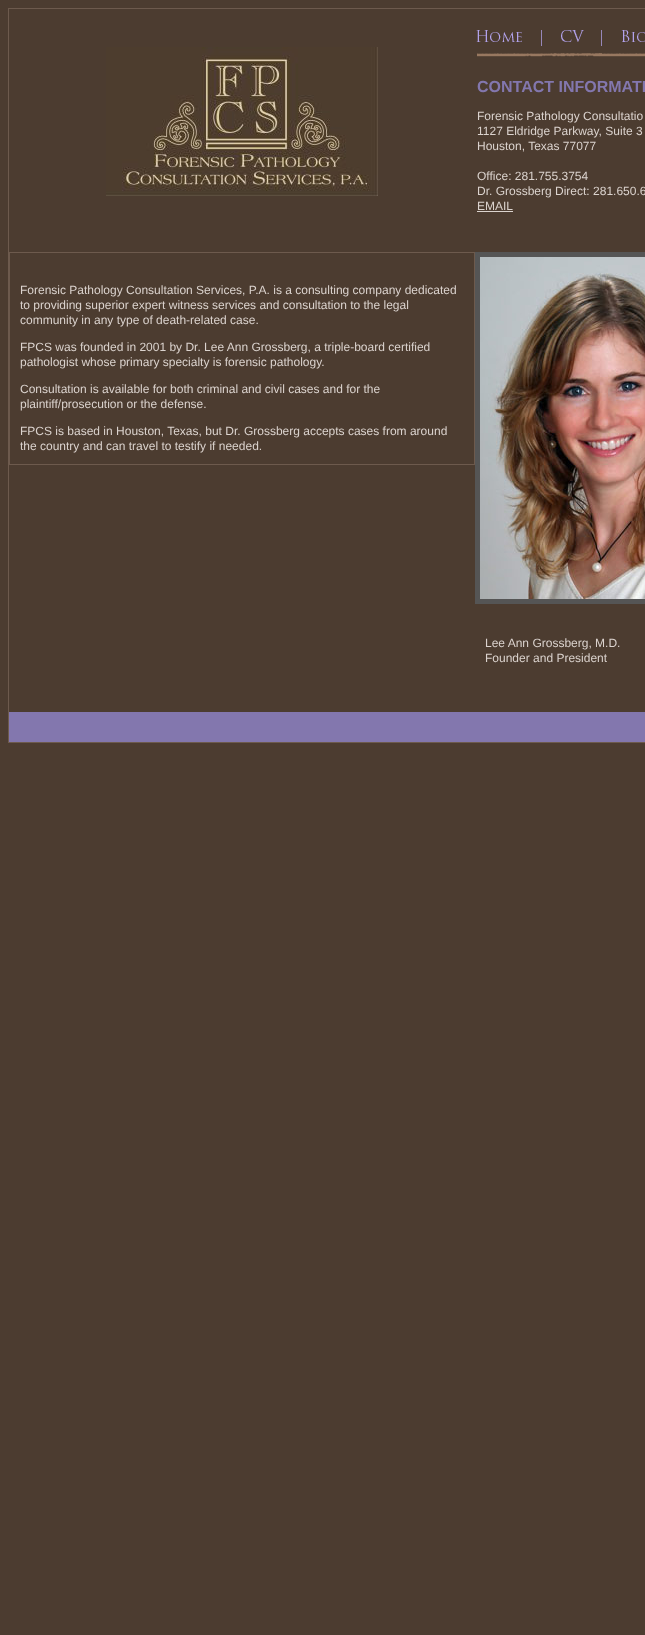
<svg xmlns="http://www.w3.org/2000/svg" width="645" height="1635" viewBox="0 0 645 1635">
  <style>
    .t1 { font: bold 16px Liberation Sans; fill: #8377ae; }
    .t2 { font: 12px Liberation Sans; fill: #dbd3ce; }
  </style>
  <rect width="100%" height="100%" fill="#4c3c30"/>
  <rect x="8" y="8" width="637" height="735" fill="#6d5a4d"/>
  <rect x="9" y="9" width="636" height="703" fill="#4c3c30"/>
  <image x="106" y="47" width="272" height="149" href="images/1.png"/>
  <image x="476" y="30" width="64" height="27" href="images/2.png"/>
  <image x="540" y="30" width="60" height="27" href="images/3.png"/>
  <image x="600" y="30" width="45" height="27" href="images/4.png"/>
  <text x="477" y="92" class="t1">CONTACT INFORMATI</text>
  <text x="477" y="120" class="t2">Forensic Pathology Consultatio</text>
  <text x="477" y="135" class="t2">1127 Eldridge Parkway, Suite 3</text>
  <text x="477" y="150" class="t2">Houston, Texas 77077</text>
  <text x="477" y="180" class="t2">Office: 281.755.3754</text>
  <text x="477" y="195" class="t2">Dr. Grossberg Direct: 281.650.6</text>
  <text x="477" y="210" class="t2">EMAIL</text>
  <rect x="477" y="211" width="36" height="1" fill="#dbd3ce"/>
  <rect x="9" y="252" width="466" height="213" fill="#6d5a4d"/>
  <rect x="10" y="253" width="464" height="211" fill="#4c3c30"/>
  <text x="20" y="294" class="t2">Forensic Pathology Consultation Services, P.A. is a consulting company dedicated</text>
  <text x="20" y="309" class="t2">to providing superior expert witness services and consultation to the legal</text>
  <text x="20" y="324" class="t2">community in any type of death-related case.</text>
  <text x="20" y="351" class="t2">FPCS was founded in 2001 by Dr. Lee Ann Grossberg, a triple-board certified</text>
  <text x="20" y="366" class="t2">pathologist whose primary specialty is forensic pathology.</text>
  <text x="20" y="393" class="t2">Consultation is available for both criminal and civil cases and for the</text>
  <text x="20" y="408" class="t2">plaintiff/prosecution or the defense.</text>
  <text x="20" y="435" class="t2">FPCS is based in Houston, Texas, but Dr. Grossberg accepts cases from around</text>
  <text x="20" y="450" class="t2">the country and can travel to testify if needed.</text>
  <rect x="477.5" y="254.5" width="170" height="347" fill="none" stroke="#555" stroke-width="5"/>
  <image x="480" y="257" width="165" height="342" href="images/5.png"/>
  <text x="485" y="647" class="t2">Lee Ann Grossberg, M.D.</text>
  <text x="485" y="662" class="t2">Founder and President</text>
  <rect x="9" y="712" width="636" height="30" fill="#8377ae"/>
</svg>
